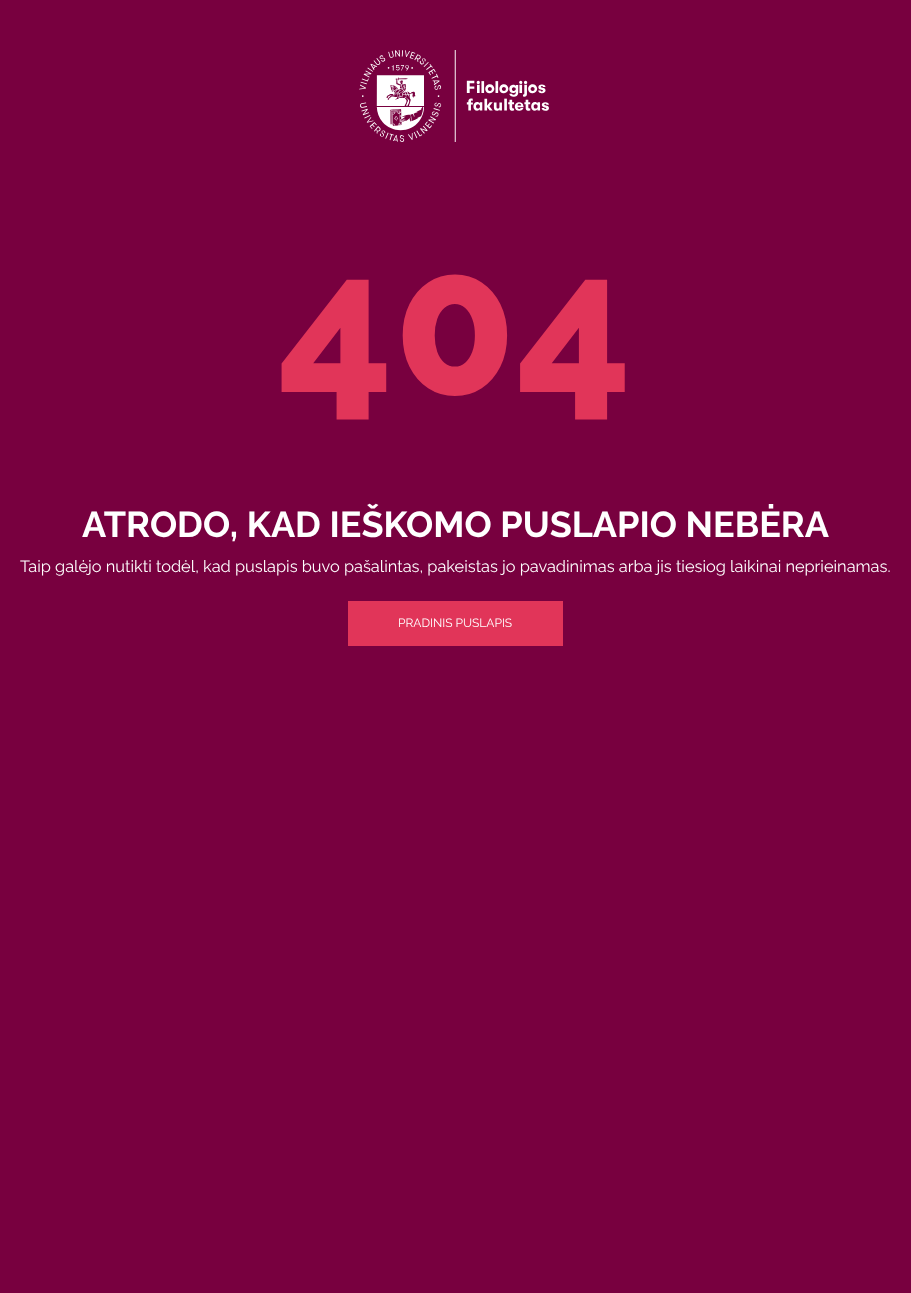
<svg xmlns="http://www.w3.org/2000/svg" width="911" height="1293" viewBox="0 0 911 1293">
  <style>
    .t1 { font: 800 200px Raleway; fill: #e13559; }
    .t2 { font: bold 36px Raleway; fill: #fff; }
    .t3 { font: 16.38px Raleway; fill: #fff; }
    .t4 { font: 12px Raleway; fill: #fff; }
  </style>
  <rect width="100%" height="100%" fill="#78003f"/>
  <image x="359" y="50" width="190" height="92" href="images/1.png"/>
  <text x="278" y="394" class="t1">404</text>
  <text x="82" y="537" class="t2">ATRODO, KAD IEŠKOMO PUSLAPIO NEBĖRA</text>
  <text x="20" y="572" class="t3">Taip galėjo nutikti todėl, kad puslapis buvo pašalintas, pakeistas jo pavadinimas arba jis tiesiog laikinai neprieinamas.</text>
  <rect x="348" y="601" width="215" height="45" fill="#e13559"/>
  <text x="398" y="627" class="t4">PRADINIS PUSLAPIS</text>
</svg>
